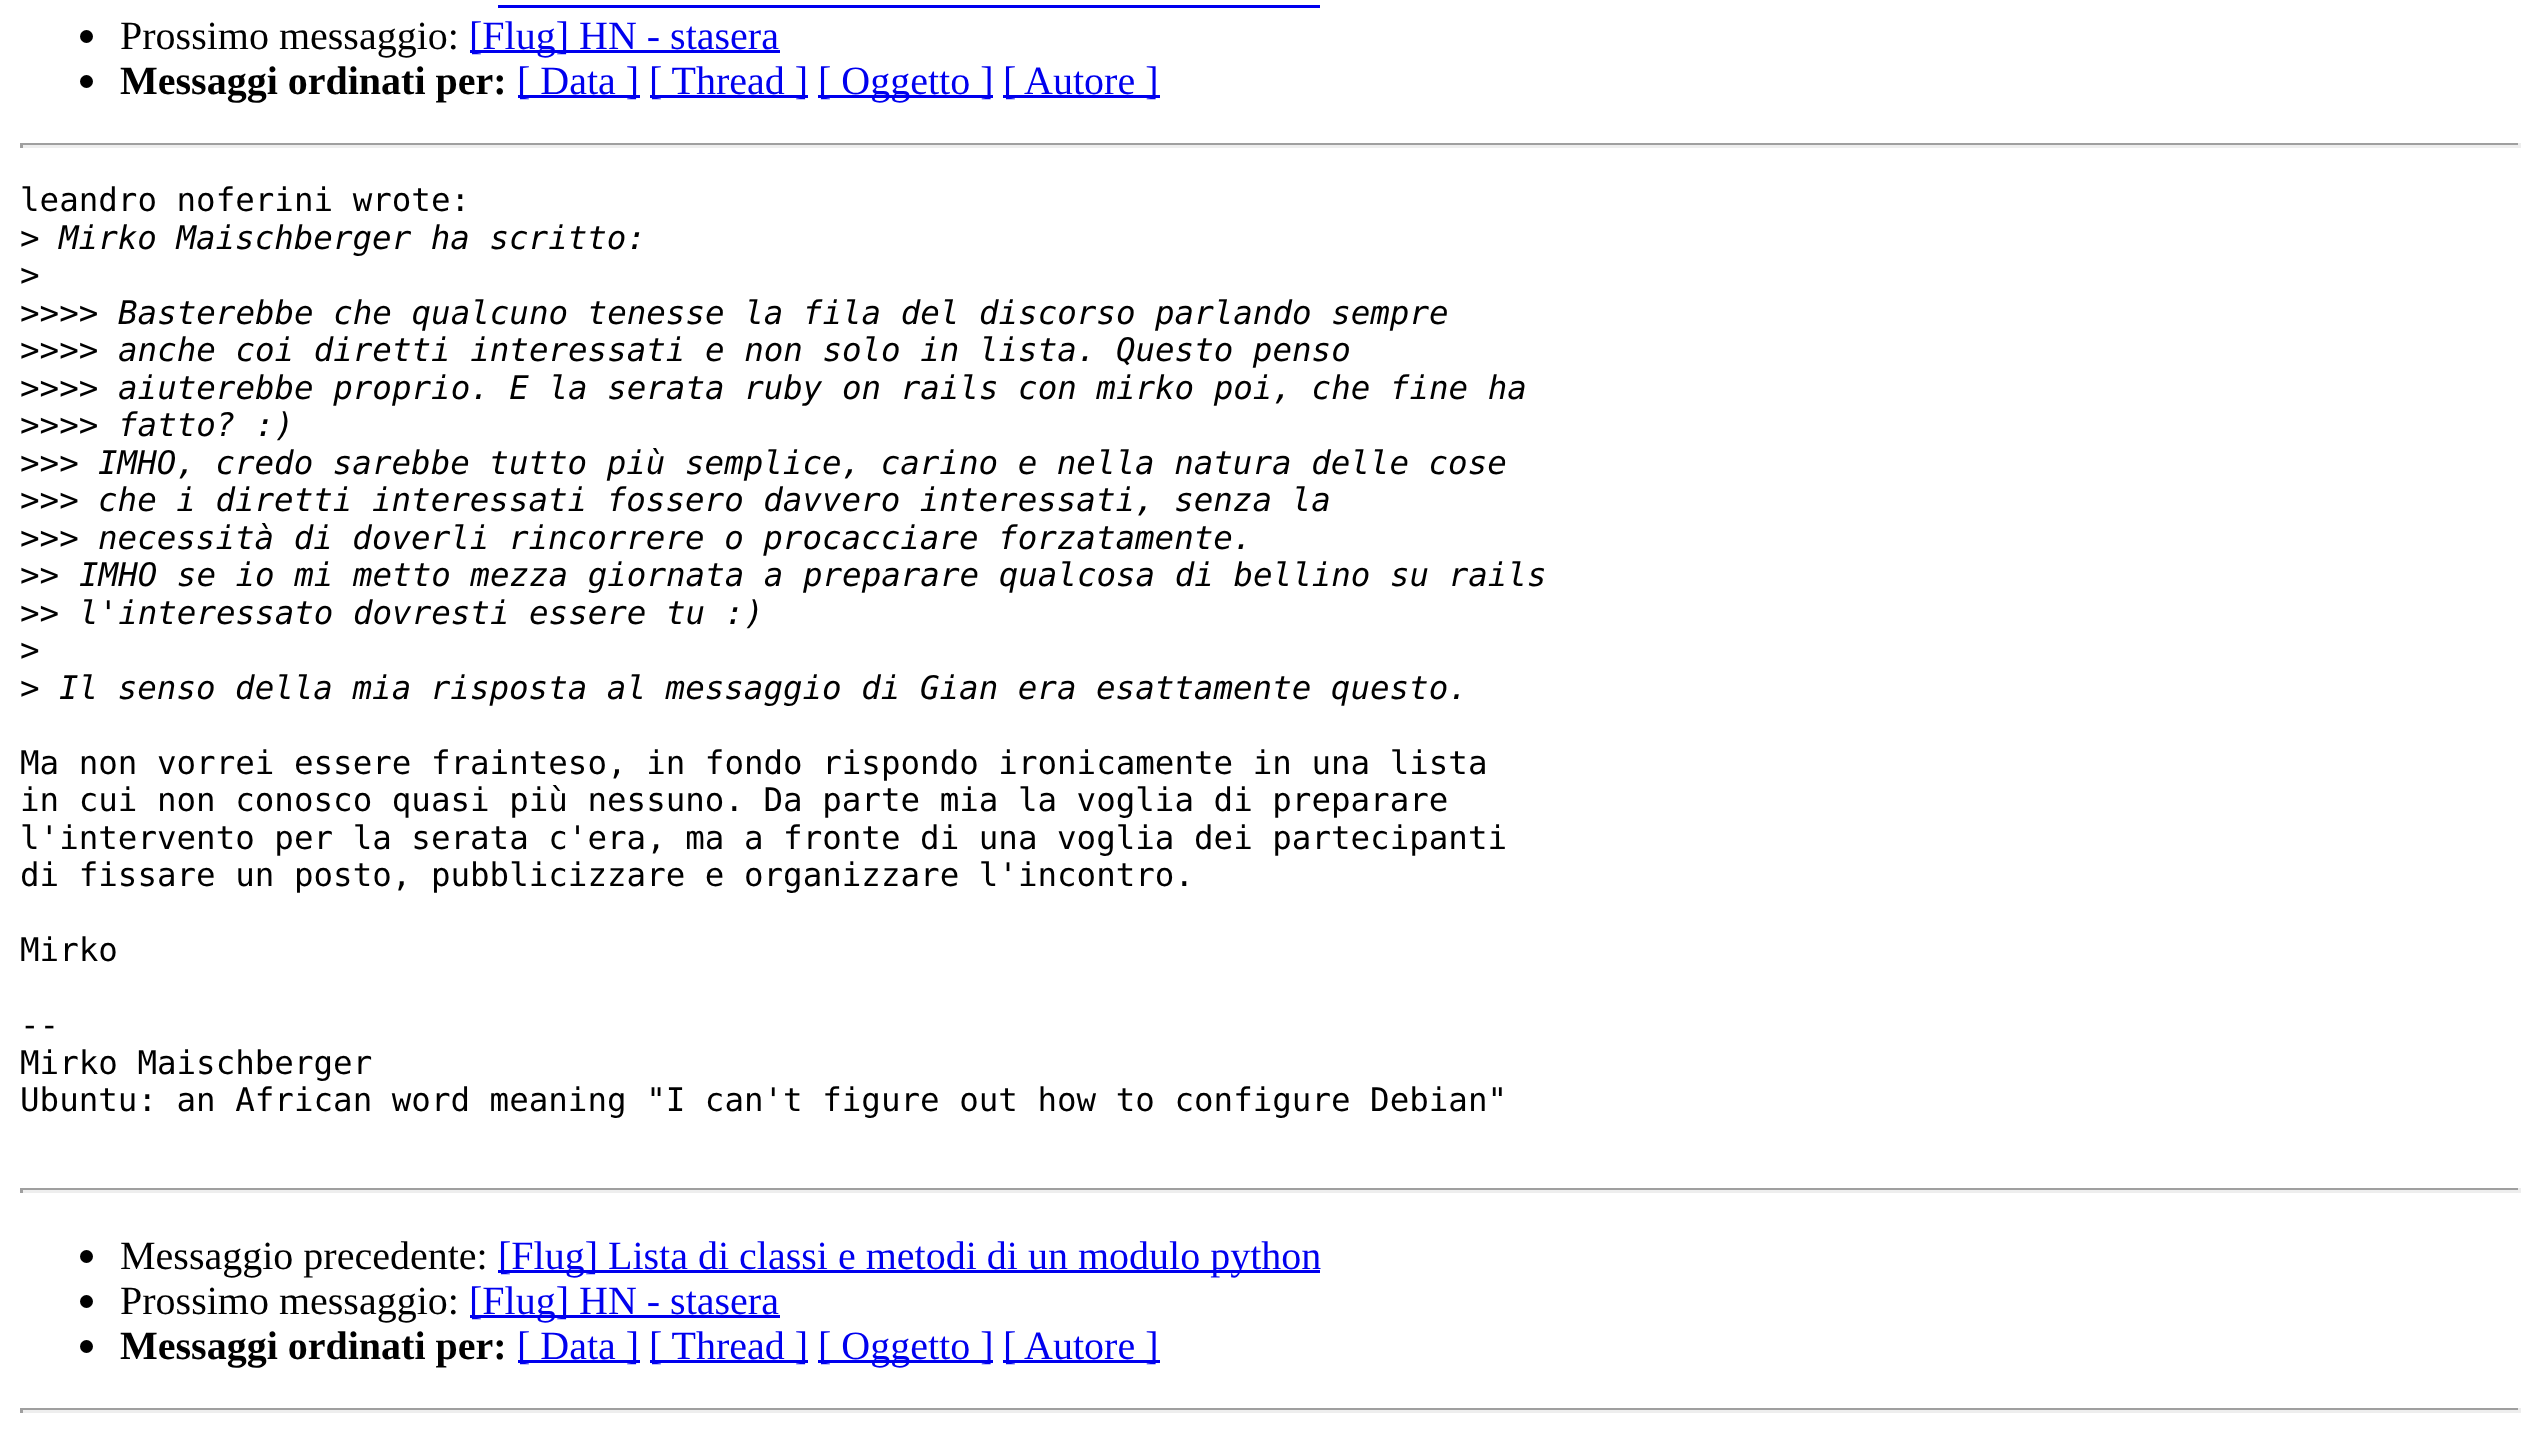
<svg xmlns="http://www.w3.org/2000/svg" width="2538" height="1431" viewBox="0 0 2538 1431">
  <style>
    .t1 { font: 40px Liberation Serif; fill: #000; }
    .t2 { font: 40px Liberation Serif; fill: #00e; }
    .t3 { font: bold 40px Liberation Serif; fill: #000; }
    .t4 { font: 32.5px DejaVu Sans Mono; fill: #000; }
    .t5 { font: italic 32.5px DejaVu Sans Mono; fill: #000; }
  </style>
  <rect width="100%" height="100%" fill="#fff"/>
  <rect x="498" y="5" width="822" height="3" fill="#00e"/>
  <circle cx="86.5" cy="36.5" r="6.5" fill="#000"/>
  <text x="120" y="49" class="t1">Prossimo messaggio:</text>
  <rect x="470" y="50" width="310" height="3" fill="#00e"/>
  <text x="469" y="49" class="t2">[Flug] HN - stasera</text>
  <circle cx="86.5" cy="81.5" r="6.5" fill="#000"/>
  <text x="120" y="94" class="t3">Messaggi ordinati per:</text>
  <rect x="518" y="95" width="122" height="3" fill="#00e"/>
  <text x="517" y="94" class="t2">[ Data ]</text>
  <rect x="650" y="95" width="158" height="3" fill="#00e"/>
  <text x="649" y="94" class="t2">[ Thread ]</text>
  <rect x="818" y="95" width="175" height="3" fill="#00e"/>
  <text x="818" y="94" class="t2">[ Oggetto ]</text>
  <rect x="1003" y="95" width="157" height="3" fill="#00e"/>
  <text x="1003" y="94" class="t2">[ Autore ]</text>
  <rect x="20" y="143" width="2500" height="2" fill="#9f9f9f"/>
  <rect x="2518" y="143" width="3" height="5" fill="#eee"/>
  <rect x="20" y="145" width="2500" height="3" fill="#eee"/>
  <rect x="20" y="143" width="3" height="5" fill="#9f9f9f"/>
  <text x="20" y="211" class="t4">leandro noferini wrote:</text>
  <text x="20" y="249" class="t4">&gt;</text>
  <text x="59" y="249" class="t5">Mirko Maischberger ha scritto:</text>
  <text x="20" y="286" class="t4">&gt;</text>
  <text x="20" y="324" class="t4">&gt;&gt;&gt;&gt;</text>
  <text x="118" y="324" class="t5">Basterebbe che qualcuno tenesse la fila del discorso parlando sempre</text>
  <text x="20" y="361" class="t4">&gt;&gt;&gt;&gt;</text>
  <text x="118" y="361" class="t5">anche coi diretti interessati e non solo in lista. Questo penso</text>
  <text x="20" y="399" class="t4">&gt;&gt;&gt;&gt;</text>
  <text x="118" y="399" class="t5">aiuterebbe proprio. E la serata ruby on rails con mirko poi, che fine ha</text>
  <text x="20" y="436" class="t4">&gt;&gt;&gt;&gt;</text>
  <text x="118" y="436" class="t5">fatto? :)</text>
  <text x="20" y="474" class="t4">&gt;&gt;&gt;</text>
  <text x="98" y="474" class="t5">IMHO, credo sarebbe tutto più semplice, carino e nella natura delle cose</text>
  <text x="20" y="511" class="t4">&gt;&gt;&gt;</text>
  <text x="98" y="511" class="t5">che i diretti interessati fossero davvero interessati, senza la</text>
  <text x="20" y="549" class="t4">&gt;&gt;&gt;</text>
  <text x="98" y="549" class="t5">necessità di doverli rincorrere o procacciare forzatamente.</text>
  <text x="20" y="586" class="t4">&gt;&gt;</text>
  <text x="79" y="586" class="t5">IMHO se io mi metto mezza giornata a preparare qualcosa di bellino su rails</text>
  <text x="20" y="624" class="t4">&gt;&gt;</text>
  <text x="79" y="624" class="t5">l'interessato dovresti essere tu :)</text>
  <text x="20" y="661" class="t4">&gt;</text>
  <text x="20" y="699" class="t4">&gt;</text>
  <text x="59" y="699" class="t5">Il senso della mia risposta al messaggio di Gian era esattamente questo.</text>
  <text x="20" y="774" class="t4">Ma non vorrei essere frainteso, in fondo rispondo ironicamente in una lista</text>
  <text x="20" y="811" class="t4">in cui non conosco quasi più nessuno. Da parte mia la voglia di preparare</text>
  <text x="20" y="849" class="t4">l'intervento per la serata c'era, ma a fronte di una voglia dei partecipanti</text>
  <text x="20" y="886" class="t4">di fissare un posto, pubblicizzare e organizzare l'incontro.</text>
  <text x="20" y="961" class="t4">Mirko</text>
  <text x="20" y="1036" class="t4">--</text>
  <text x="20" y="1074" class="t4">Mirko Maischberger</text>
  <text x="20" y="1111" class="t4">Ubuntu: an African word meaning "I can't figure out how to configure Debian"</text>
  <rect x="20" y="1188" width="2500" height="2" fill="#9f9f9f"/>
  <rect x="2518" y="1188" width="3" height="5" fill="#eee"/>
  <rect x="20" y="1190" width="2500" height="3" fill="#eee"/>
  <rect x="20" y="1188" width="3" height="5" fill="#9f9f9f"/>
  <circle cx="86.5" cy="1256.5" r="6.5" fill="#000"/>
  <text x="120" y="1269" class="t1">Messaggio precedente:</text>
  <rect x="498" y="1270" width="822" height="3" fill="#00e"/>
  <text x="498" y="1269" class="t2">[Flug] Lista di classi e metodi di un modulo python</text>
  <circle cx="86.5" cy="1301.5" r="6.5" fill="#000"/>
  <text x="120" y="1314" class="t1">Prossimo messaggio:</text>
  <rect x="470" y="1315" width="310" height="3" fill="#00e"/>
  <text x="469" y="1314" class="t2">[Flug] HN - stasera</text>
  <circle cx="86.5" cy="1346.5" r="6.5" fill="#000"/>
  <text x="120" y="1359" class="t3">Messaggi ordinati per:</text>
  <rect x="518" y="1360" width="122" height="3" fill="#00e"/>
  <text x="517" y="1359" class="t2">[ Data ]</text>
  <rect x="650" y="1360" width="158" height="3" fill="#00e"/>
  <text x="649" y="1359" class="t2">[ Thread ]</text>
  <rect x="818" y="1360" width="175" height="3" fill="#00e"/>
  <text x="818" y="1359" class="t2">[ Oggetto ]</text>
  <rect x="1003" y="1360" width="157" height="3" fill="#00e"/>
  <text x="1003" y="1359" class="t2">[ Autore ]</text>
  <rect x="20" y="1408" width="2500" height="2" fill="#9f9f9f"/>
  <rect x="2518" y="1408" width="3" height="5" fill="#eee"/>
  <rect x="20" y="1410" width="2500" height="3" fill="#eee"/>
  <rect x="20" y="1408" width="3" height="5" fill="#9f9f9f"/>
</svg>
